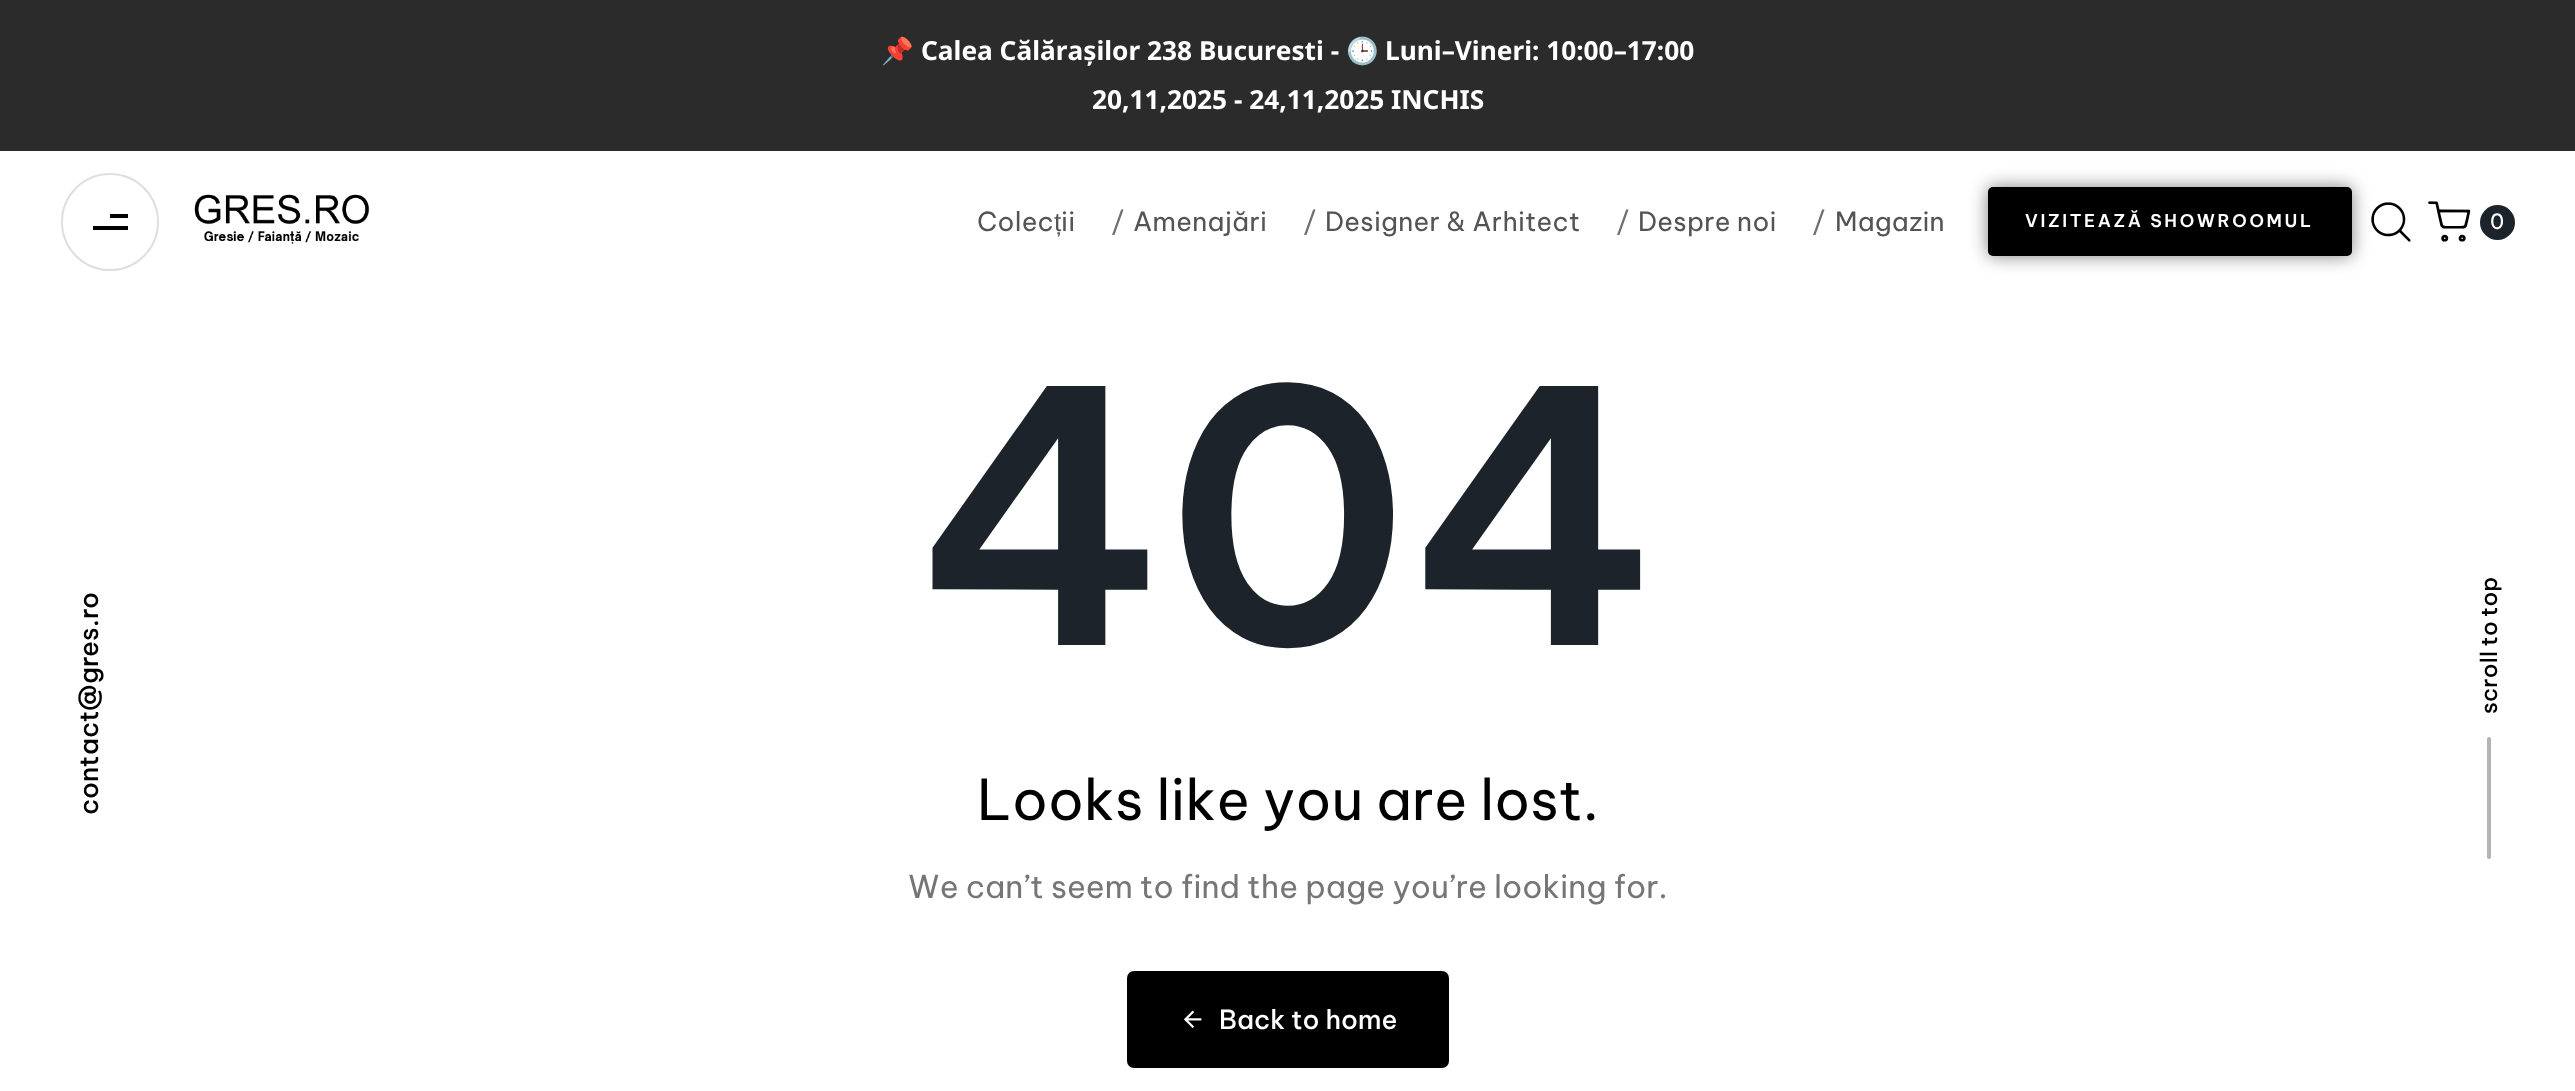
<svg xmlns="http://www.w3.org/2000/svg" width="2575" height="1091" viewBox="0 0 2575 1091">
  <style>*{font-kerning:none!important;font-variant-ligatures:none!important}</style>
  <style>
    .t1 { font: bold 26.25px Noto Color Emoji; fill: #fff; }
    .t2 { font: bold 26.25px Noto Sans; fill: #fff; }
    .t3 { font: 26.25px Be Vietnam Pro; letter-spacing: 0.25px; fill: #545454; }
    .t4 { font: 26.25px Liberation Sans; letter-spacing: 0.25px; fill: #545454; }
    .t5 { font: 26.25px Be Vietnam Pro; letter-spacing: 0.25px; fill: #707070; }
    .t6 { font: 600 17.5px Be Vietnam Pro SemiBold; letter-spacing: 2.6px; fill: #fff; }
    .t7 { font: 21px Be Vietnam Pro; fill: #fff; }
    .t8 { font: 500 26.25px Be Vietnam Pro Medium; fill: #000; }
    .t9 { font: 500 22.75px Be Vietnam Pro Medium; letter-spacing: 0.25px; fill: #000; }
    .t10 { font: 600 350px Be Vietnam Pro SemiBold; fill: #1d232b; }
    .t11 { font: 56px Be Vietnam Pro; fill: #000; }
    .t12 { font: 31.5px Be Vietnam Pro; fill: #767676; }
    .t13 { font: 500 26.25px Be Vietnam Pro Medium; fill: #fff; }
  </style>
  <rect width="100%" height="100%" fill="#fff"/>
  <rect x="0" y="0" width="2575" height="151" fill="#2b2b2b"/>
  <text x="881" y="60" class="t1">📌</text>
  <text x="921" y="60" class="t2">Calea Călărașilor 238 Bucuresti -</text>
  <text x="1346" y="60" class="t1">🕒</text>
  <text x="1385" y="60" class="t2">Luni–Vineri: 10:00–17:00</text>
  <text x="1092" y="109" class="t2">20,11,2025 - 24,11,2025 INCHIS</text>
  <circle cx="110" cy="222" r="48" fill="none" stroke="#dedede" stroke-width="2"/>
  <rect x="110" y="214" width="18" height="4" fill="#000"/>
  <rect x="93" y="226" width="35" height="4" fill="#000"/>
  <image x="194" y="194" width="176" height="50" href="images/1.png"/>
  <text x="977" y="231" class="t3">Colec</text>
  <text x="1054" y="231" class="t4">ț</text>
  <text x="1061" y="231" class="t3">ii</text>
  <text x="1111" y="231" class="t5">/</text>
  <text x="1133" y="231" class="t3">Amenajări</text>
  <text x="1303" y="231" class="t5">/</text>
  <text x="1325" y="231" class="t3">Designer &amp; Arhitect</text>
  <text x="1616" y="231" class="t5">/</text>
  <text x="1638" y="231" class="t3">Despre noi</text>
  <text x="1812" y="231" class="t5">/</text>
  <text x="1835" y="231" class="t3">Magazin</text>
  <rect x="1988" y="187" width="364" height="69" rx="5" fill="#00000080" filter="blur(9px)"/>
  <rect x="1988" y="187" width="364" height="69" rx="5" fill="#000"/>
  <text x="2025" y="227" class="t6">VIZITEAZĂ SHOWROOMUL</text>
  <image x="2371" y="202" width="40" height="40" href="images/2.png"/>
  <image x="2428" y="201" width="43" height="41" href="images/3.png"/>
  <circle cx="2497.5" cy="222.5" r="17.5" fill="#1d232b"/>
  <text x="2490" y="229" class="t7">0</text>
  <text x="98" y="609" transform="rotate(-90 98 609)" class="t8">o</text>
  <text x="98" y="619" transform="rotate(-90 98 619)" class="t8">r</text>
  <text x="98" y="627" transform="rotate(-90 98 627)" class="t8">.</text>
  <text x="98" y="641" transform="rotate(-90 98 641)" class="t8">s</text>
  <text x="98" y="657" transform="rotate(-90 98 657)" class="t8">e</text>
  <text x="98" y="667" transform="rotate(-90 98 667)" class="t8">r</text>
  <text x="98" y="684" transform="rotate(-90 98 684)" class="t8">g</text>
  <text x="98" y="711" transform="rotate(-90 98 711)" class="t8">@</text>
  <text x="98" y="722" transform="rotate(-90 98 722)" class="t8">t</text>
  <text x="98" y="738" transform="rotate(-90 98 738)" class="t8">c</text>
  <text x="98" y="755" transform="rotate(-90 98 755)" class="t8">a</text>
  <text x="98" y="767" transform="rotate(-90 98 767)" class="t8">t</text>
  <text x="98" y="782" transform="rotate(-90 98 782)" class="t8">n</text>
  <text x="98" y="799" transform="rotate(-90 98 799)" class="t8">o</text>
  <text x="98" y="815" transform="rotate(-90 98 815)" class="t8">c</text>
  <text x="2497" y="714" transform="rotate(-90 2497 714)" word-spacing="-1" class="t9">scroll to top</text>
  <rect x="2487" y="737" width="4" height="122" rx="2" fill="#b3b3b3"/>
  <text x="916" y="645" class="t10">404</text>
  <text x="977" y="820" class="t11">Looks like you are</text>
  <text x="1480" y="820" class="t11">lost.</text>
  <text x="908" y="898" class="t12">We can’t seem to find the page you’re</text>
  <text x="1494" y="898" class="t12">looking for.</text>
  <rect x="1127" y="971" width="322" height="97" rx="7" fill="#000"/>
  <image x="1184" y="1010" width="18" height="18" href="images/4.png"/>
  <text x="1219" y="1029" class="t13">Back to home</text>
</svg>
